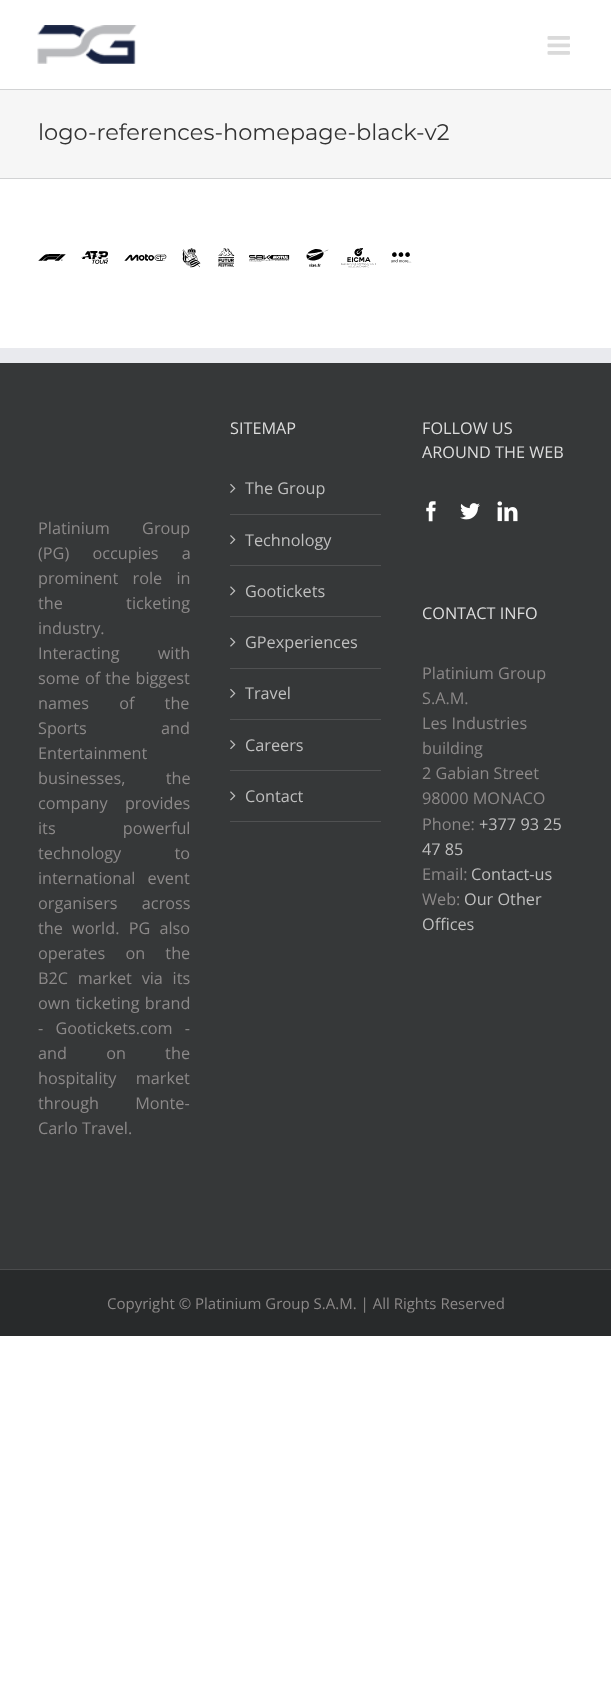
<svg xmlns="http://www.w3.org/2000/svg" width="611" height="1699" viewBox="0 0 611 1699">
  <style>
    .t1 { font: 100 22.5px Montserrat; fill: #333; }
    .t2 { font: 16.25px Open Sans; fill: #8c8989; }
    .t3 { font: 16.25px Open Sans; fill: #ddd; }
    .t4 { font: 16.25px Open Sans; fill: #bfbfbf; }
    .t5 { font: 15px Open Sans; fill: #8c8989; }
  </style>
  <rect width="100%" height="100%" fill="#fff"/>
  <image x="37" y="25" width="100" height="39" href="images/1.png"/>
  <image x="547" y="36" width="23" height="19" href="images/2.png"/>
  <rect x="0" y="90" width="611" height="88" fill="#f6f6f6"/>
  <rect x="0" y="89" width="611" height="1" fill="#d2d3d4"/>
  <rect x="0" y="178" width="611" height="1" fill="#d2d3d4"/>
  <text x="38" y="140" class="t1">logo-references-homepage-black-v2</text>
  <image x="38" y="248" width="374" height="20" href="images/3.png"/>
  <rect x="0" y="363" width="611" height="906" fill="#363839"/>
  <rect x="0" y="348" width="611" height="15" fill="#e9eaee"/>
  <text x="38" y="534" word-spacing="28" class="t2">Platinium Group</text>
  <text x="38" y="559" word-spacing="19" class="t2">(PG) occupies a</text>
  <text x="38" y="584" word-spacing="10" class="t2">prominent role in</text>
  <text x="38" y="609" word-spacing="59" class="t2">the ticketing</text>
  <text x="38" y="634" class="t2">industry.</text>
  <text x="38" y="659" word-spacing="34" class="t2">Interacting with</text>
  <text x="38" y="684" word-spacing="1" class="t2">some of the biggest</text>
  <text x="38" y="709" word-spacing="26" class="t2">names of the</text>
  <text x="38" y="734" word-spacing="70" class="t2">Sports and</text>
  <text x="38" y="759" class="t2">Entertainment</text>
  <text x="38" y="784" word-spacing="36" class="t2">businesses, the</text>
  <text x="38" y="809" word-spacing="13" class="t2">company provides</text>
  <text x="38" y="834" word-spacing="63" class="t2">its powerful</text>
  <text x="38" y="859" word-spacing="49" class="t2">technology to</text>
  <text x="38" y="884" word-spacing="8" class="t2">international event</text>
  <text x="38" y="909" word-spacing="20" class="t2">organisers across</text>
  <text x="38" y="934" word-spacing="5" class="t2">the world. PG also</text>
  <text x="38" y="959" word-spacing="16" class="t2">operates on the</text>
  <text x="38" y="984" word-spacing="5.5" class="t2">B2C market via its</text>
  <text x="38" y="1009" word-spacing="1" class="t2">own ticketing brand</text>
  <text x="38" y="1034" word-spacing="8" class="t2">- Gootickets.com -</text>
  <text x="38" y="1059" word-spacing="35" class="t2">and on the</text>
  <text x="38" y="1084" word-spacing="15" class="t2">hospitality market</text>
  <text x="38" y="1109" word-spacing="32" class="t2">through Monte-</text>
  <text x="38" y="1134" class="t2">Carlo Travel.</text>
  <text x="230" y="434" class="t3">SITEMAP</text>
  <rect x="230" y="514" width="151" height="1" fill="#505152"/>
  <image x="230" y="483" width="6" height="10" href="images/4.png"/>
  <text x="245" y="494" class="t4">The Group</text>
  <rect x="230" y="565" width="151" height="1" fill="#505152"/>
  <image x="230" y="535" width="6" height="10" href="images/5.png"/>
  <text x="245" y="546" class="t4">Technology</text>
  <rect x="230" y="616" width="151" height="1" fill="#505152"/>
  <image x="230" y="586" width="6" height="10" href="images/6.png"/>
  <text x="245" y="597" class="t4">Gootickets</text>
  <rect x="230" y="668" width="151" height="1" fill="#505152"/>
  <image x="230" y="637" width="6" height="10" href="images/7.png"/>
  <text x="245" y="648" class="t4">GPexperiences</text>
  <rect x="230" y="719" width="151" height="1" fill="#505152"/>
  <image x="230" y="688" width="6" height="10" href="images/4.png"/>
  <text x="245" y="699" class="t4">Travel</text>
  <rect x="230" y="770" width="151" height="1" fill="#505152"/>
  <image x="230" y="740" width="6" height="10" href="images/5.png"/>
  <text x="245" y="751" class="t4">Careers</text>
  <rect x="230" y="821" width="151" height="1" fill="#505152"/>
  <image x="230" y="791" width="6" height="10" href="images/6.png"/>
  <text x="245" y="802" class="t4">Contact</text>
  <text x="422" y="434" class="t3">FOLLOW US</text>
  <text x="422" y="458" class="t3">AROUND THE WEB</text>
  <image x="426" y="501" width="10" height="21" href="images/8.png"/>
  <image x="460" y="503" width="20" height="17" href="images/9.png"/>
  <image x="497" y="501" width="21" height="21" href="images/10.png"/>
  <text x="422" y="619" class="t3">CONTACT INFO</text>
  <text x="422" y="679" class="t2">Platinium Group</text>
  <text x="422" y="704" class="t2">S.A.M.</text>
  <text x="422" y="729" class="t2">Les Industries</text>
  <text x="422" y="754" class="t2">building</text>
  <text x="422" y="779" class="t2">2 Gabian Street</text>
  <text x="422" y="804" class="t2">98000 MONACO</text>
  <text x="422" y="830" class="t2">Phone:</text>
  <text x="479" y="830" class="t4">+377 93 25</text>
  <text x="422" y="855" class="t4">47 85</text>
  <text x="422" y="880" class="t2">Email:</text>
  <text x="471" y="880" class="t4">Contact-us</text>
  <text x="422" y="905" class="t2">Web:</text>
  <text x="464" y="905" class="t4">Our Other</text>
  <text x="422" y="930" class="t4">Offices</text>
  <rect x="0" y="1270" width="611" height="66" fill="#282a2b"/>
  <rect x="0" y="1269" width="611" height="1" fill="#4b4c4d"/>
  <text x="107" y="1309" class="t5">Copyright © Platinium Group S.A.M. | All Rights Reserved</text>
</svg>
